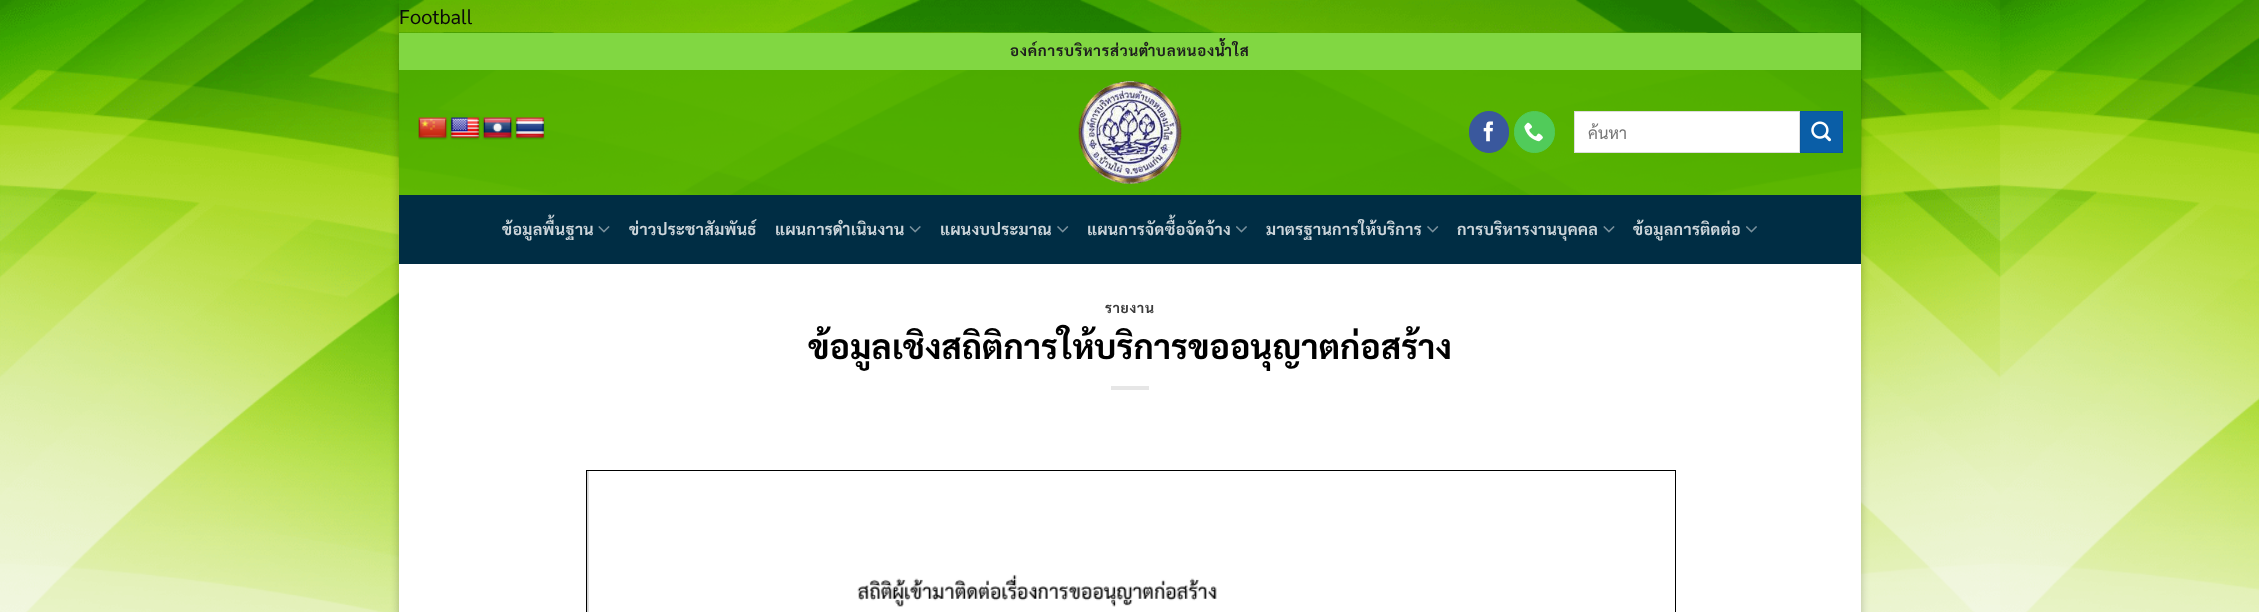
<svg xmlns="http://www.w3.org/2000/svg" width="2259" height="612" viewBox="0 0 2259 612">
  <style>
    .t1 { font: 20px Sarabun; fill: #0a0a0a; }
    .t2 { font: bold 15px Sarabun; letter-spacing: 0.75px; fill: #1e1e1e; }
    .t3 { font: 16.5px Sarabun; fill: #757575; }
    .t4 { font: bold 16px Sarabun; letter-spacing: 0.3px; fill: #ccd5da; }
    .t5 { font: bold 14px Sarabun; letter-spacing: 0.75px; fill: #3b3b3b; }
    .t6 { font: bold 34px Sarabun; fill: #000; }
  </style>
  <defs>
    <clipPath id="clip1"><path d="M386 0H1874V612H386ZM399 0H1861V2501H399Z" clip-rule="evenodd"/></clipPath>
    <clipPath id="clip2"><rect x="1588" y="121" width="193" height="22"/></clipPath>
  </defs>
  <rect width="100%" height="100%" fill="#fff"/>
  <image x="0" y="0" width="2259" height="612" href="images/1.png"/>
  <g clip-path="url(#clip1)">
    <rect x="399" y="4" width="1462" height="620" fill="#0000003b" filter="blur(4px)"/>
  </g>
  <text x="399" y="24" class="t1">Football</text>
  <rect x="399" y="264" width="1462" height="348" fill="#fff"/>
  <image x="398" y="32" width="1464" height="232" href="images/2.png"/>
  <rect x="399" y="70" width="1462" height="125" fill="#53b200d9"/>
  <rect x="399" y="33" width="1462" height="37" fill="#81d742"/>
  <text x="1010" y="56" class="t2">องค์การบริหารส่วนตำบลหนองน้ำใส</text>
  <image x="418" y="117" width="30" height="23" href="images/3.png"/>
  <image x="450" y="117" width="30" height="23" href="images/4.png"/>
  <image x="482" y="117" width="31" height="23" href="images/5.png"/>
  <image x="515" y="117" width="30" height="23" href="images/6.png"/>
  <image x="1078" y="81" width="104" height="103" href="images/7.png"/>
  <rect x="1469.5" y="111.5" width="39" height="41" rx="19.5" fill="#3a589d" stroke="#3a589d"/>
  <image x="1483" y="121" width="10" height="21" href="images/8.png"/>
  <rect x="1514.5" y="111.5" width="40" height="41" rx="20" fill="#51cb5a" stroke="#51cb5a"/>
  <image x="1524" y="122" width="19" height="20" href="images/9.png"/>
  <rect x="1574.5" y="111.5" width="225" height="41" fill="#fff" stroke="#ddd"/>
  <g clip-path="url(#clip2)">
    <text x="1588" y="139" class="t3">ค้นหา</text>
  </g>
  <rect x="1800.5" y="111.5" width="42" height="41" fill="#0a5ea7" stroke="#0a599f"/>
  <image x="1811" y="121" width="20" height="21" href="images/10.png"/>
  <rect x="399" y="195" width="1462" height="69" fill="#002d44"/>
  <text x="502" y="235" class="t4">ข้อมูลพื้นฐาน</text>
  <image x="598" y="226" width="12" height="7" href="images/11.png"/>
  <text x="629" y="235" class="t4">ข่าวประชาสัมพันธ์</text>
  <text x="775" y="235" class="t4">แผนการดำเนินงาน</text>
  <image x="909" y="226" width="12" height="7" href="images/12.png"/>
  <text x="940" y="235" class="t4">แผนงบประมาณ</text>
  <image x="1057" y="226" width="12" height="7" href="images/13.png"/>
  <text x="1087" y="235" class="t4">แผนการจัดซื้อจัดจ้าง</text>
  <image x="1236" y="226" width="11" height="7" href="images/14.png"/>
  <text x="1266" y="235" class="t4">มาตรฐานการให้บริการ</text>
  <image x="1427" y="226" width="12" height="7" href="images/13.png"/>
  <text x="1457" y="235" class="t4">การบริหารงานบุคคล</text>
  <image x="1603" y="226" width="12" height="7" href="images/11.png"/>
  <text x="1633" y="235" class="t4">ข้อมูลการติดต่อ</text>
  <image x="1746" y="226" width="11" height="7" href="images/14.png"/>
  <text x="1105" y="313" class="t5">รายงาน</text>
  <text x="808" y="359" class="t6">ข้อมูลเชิงสถิติการให้บริการขออนุญาตก่อสร้าง</text>
  <rect x="1111" y="386" width="38" height="4" fill="#e6e6e6"/>
  <rect x="587" y="471" width="2" height="141" fill="#d3d3d3"/>
  <rect x="586.5" y="470.5" width="1089" height="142" fill="none" stroke="#000"/>
  <image x="588" y="471" width="629" height="141" href="images/15.png"/>
</svg>
